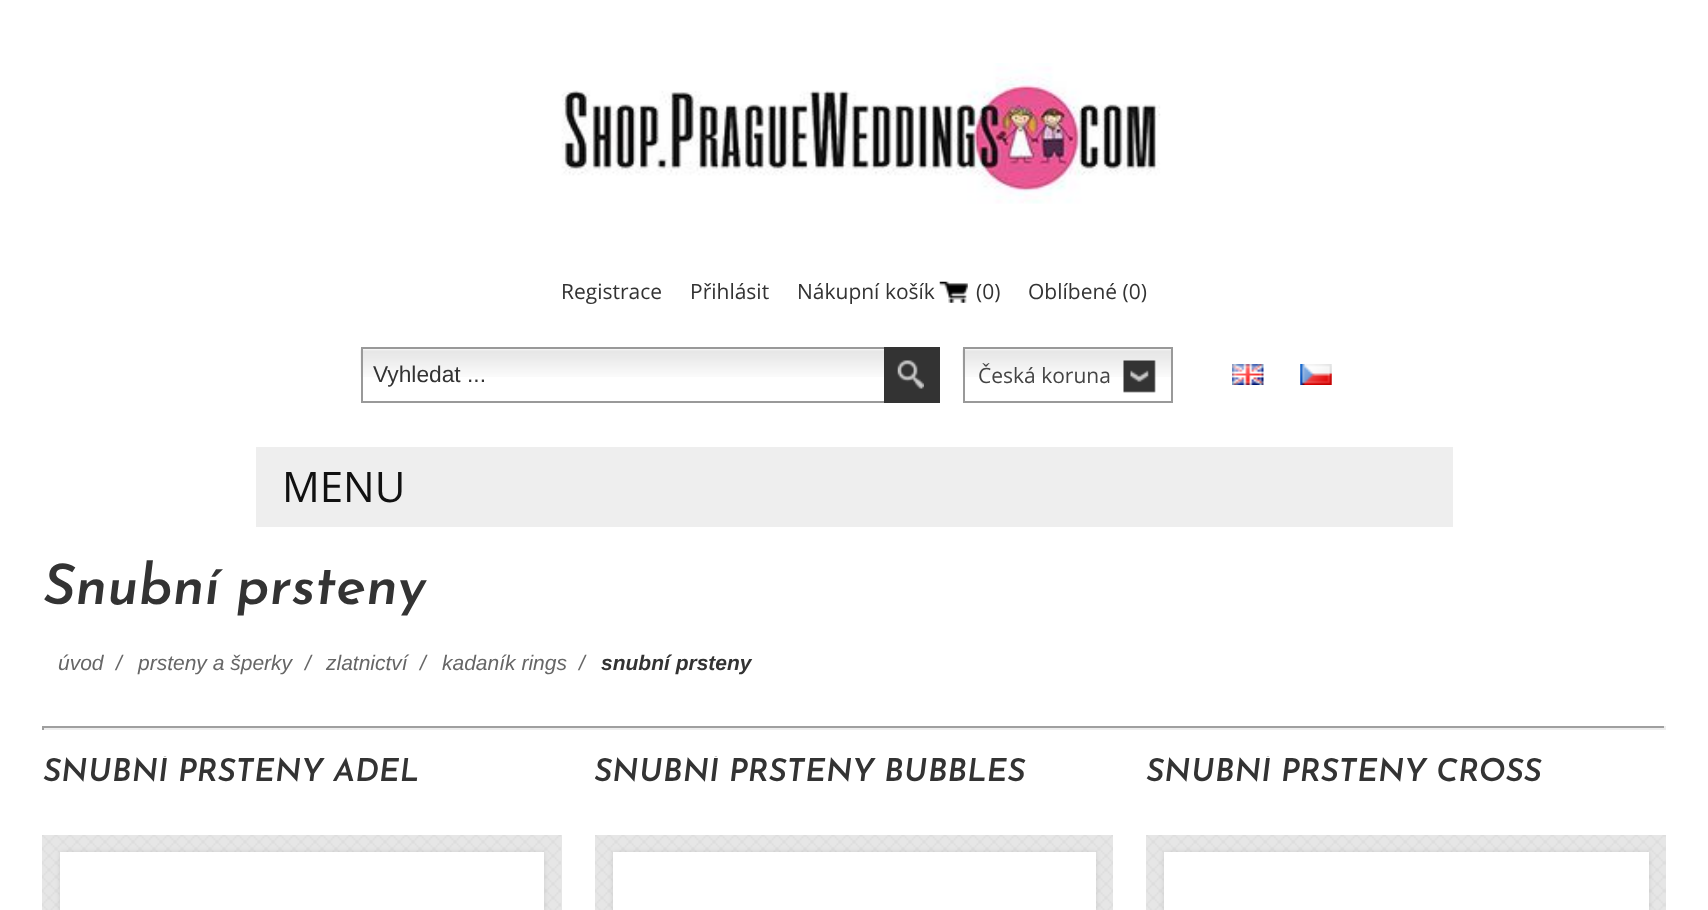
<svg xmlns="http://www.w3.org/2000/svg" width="1708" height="910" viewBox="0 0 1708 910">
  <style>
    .t1 { font: 21px Open Sans; fill: #333; }
    .t2 { font: 22.75px Liberation Sans; fill: #333; }
    .t3 { font: 21px Open Sans; fill: #444; }
    .t4 { font: 42px Open Sans; fill: #111; }
    .t5 { font: italic 600 56px Josefin Sans; fill: #333; }
    .t6 { font: italic 21px Liberation Sans; fill: #666; }
    .t7 { font: italic bold 21px Liberation Sans; fill: #333; }
    .t8 { font: italic 600 31.5px Josefin Sans; fill: #333; }
  </style>
  <defs>
    <clipPath id="clip1"><rect x="42" y="756" width="520" height="74"/></clipPath>
    <clipPath id="clip2"><rect x="595" y="756" width="518" height="74"/></clipPath>
    <clipPath id="clip3"><rect x="1146" y="756" width="520" height="74"/></clipPath>
  </defs>
  <rect width="100%" height="100%" fill="#fff"/>
  <image x="561" y="63" width="600" height="141" href="images/1.png"/>
  <text x="561" y="299" class="t1">Registrace</text>
  <text x="690" y="299" class="t1">Přihlásit</text>
  <text x="797" y="299" class="t1">Nákupní košík</text>
  <image x="939" y="281" width="29" height="22" href="images/2.png"/>
  <text x="976" y="299" class="t1">(0)</text>
  <text x="1028" y="299" class="t1">Oblíbené (0)</text>
  <image x="360" y="348" width="524" height="29" href="images/3.png"/>
  <rect x="362" y="348" width="523" height="54" fill="none" stroke="#999" stroke-width="2"/>
  <text x="373" y="382" class="t2">Vyhledat ...</text>
  <rect x="884" y="347" width="56" height="56" fill="#333"/>
  <image x="897" y="360" width="27" height="29" href="images/4.png"/>
  <image x="962" y="348" width="209" height="29" href="images/5.png"/>
  <rect x="964" y="348" width="208" height="54" fill="none" stroke="#999" stroke-width="2"/>
  <image x="1123" y="360" width="33" height="33" href="images/6.png"/>
  <text x="978" y="383" class="t3">Česká koruna</text>
  <image x="1232" y="364" width="32" height="21" href="images/7.png"/>
  <image x="1300" y="364" width="32" height="21" href="images/8.png"/>
  <rect x="256" y="447" width="1197" height="80" fill="#eee"/>
  <text x="282" y="502" class="t4">MENU</text>
  <text x="43" y="604" class="t5">Snubní prsteny</text>
  <text x="58" y="670" class="t6">úvod</text>
  <text x="116" y="670" class="t6">/</text>
  <text x="138" y="670" class="t6">prsteny a šperky</text>
  <text x="305" y="670" class="t6">/</text>
  <text x="326" y="670" class="t6">zlatnictví</text>
  <text x="420" y="670" class="t6">/</text>
  <text x="442" y="670" class="t6">kadaník rings</text>
  <text x="579" y="670" class="t6">/</text>
  <text x="601" y="670" class="t7">snubní prsteny</text>
  <rect x="42" y="726" width="1624" height="2" fill="#9f9f9f"/>
  <rect x="1664" y="726" width="2" height="4" fill="#eee"/>
  <rect x="42" y="728" width="1624" height="2" fill="#eee"/>
  <rect x="42" y="726" width="2" height="4" fill="#9f9f9f"/>
  <rect x="42" y="835" width="520" height="75" fill="#e6e6e6"/>
  <image x="42" y="835" width="519" height="75" href="images/9.png"/>
  <g clip-path="url(#clip1)">
    <text x="43" y="781" class="t8">SNUBNÍ PRSTENY ADEL</text>
  </g>
  <rect x="60" y="852" width="484" height="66" fill="#0000001a" filter="blur(2.5px)"/>
  <rect x="60" y="852" width="484" height="58" fill="#fff"/>
  <rect x="595" y="835" width="518" height="75" fill="#e6e6e6"/>
  <image x="595" y="835" width="518" height="75" href="images/10.png"/>
  <g clip-path="url(#clip2)">
    <text x="594" y="781" class="t8">SNUBNÍ PRSTENY BUBBLES</text>
  </g>
  <rect x="613" y="852" width="483" height="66" fill="#0000001a" filter="blur(2.5px)"/>
  <rect x="613" y="852" width="483" height="58" fill="#fff"/>
  <rect x="1146" y="835" width="520" height="75" fill="#e6e6e6"/>
  <image x="1146" y="835" width="520" height="75" href="images/11.png"/>
  <g clip-path="url(#clip3)">
    <text x="1146" y="781" class="t8">SNUBNÍ PRSTENY CROSS</text>
  </g>
  <rect x="1164" y="852" width="485" height="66" fill="#0000001a" filter="blur(2.5px)"/>
  <rect x="1164" y="852" width="485" height="58" fill="#fff"/>
</svg>
